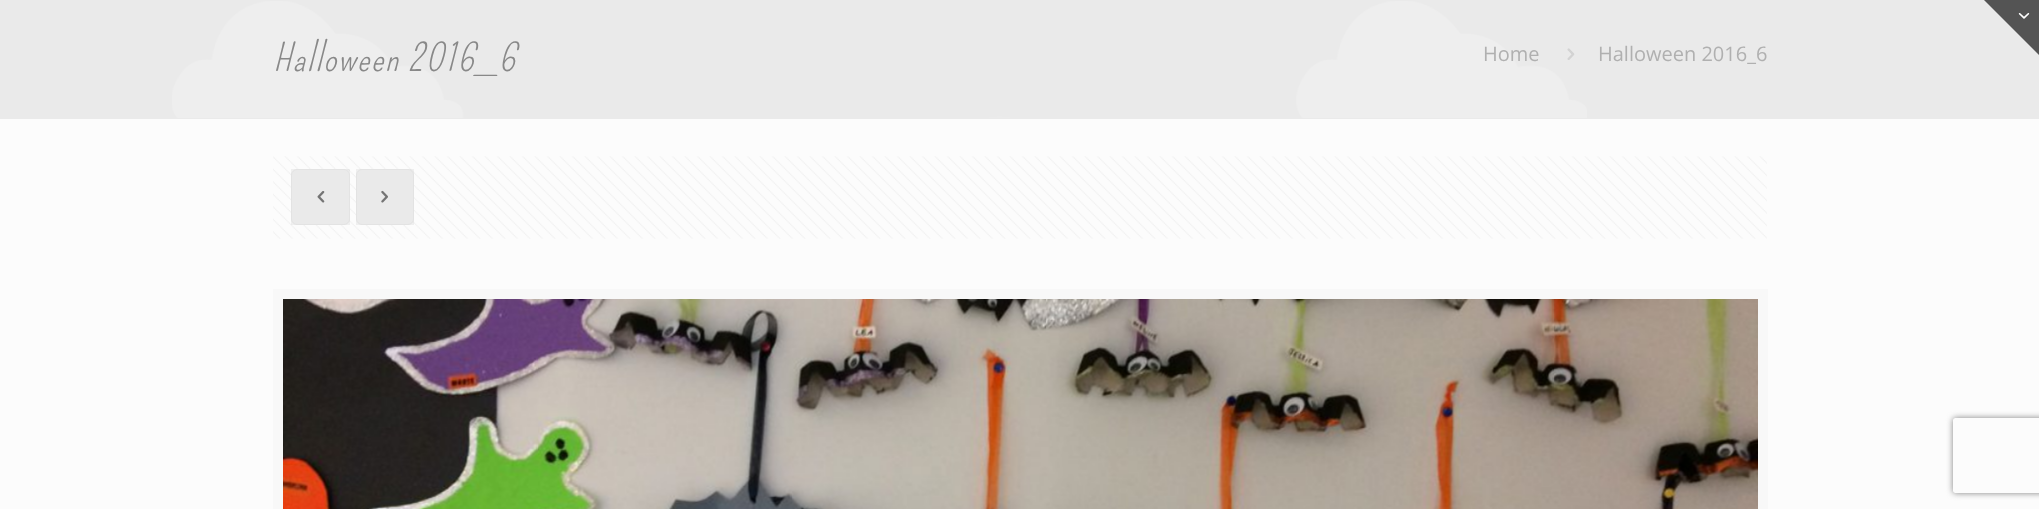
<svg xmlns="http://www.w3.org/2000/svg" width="2039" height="509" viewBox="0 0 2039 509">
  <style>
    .t1 { font: italic 37.5px Pompiere; letter-spacing: 1.25px; fill: #888; }
    .t2 { font: 20px Open Sans; fill: #b0b0b0; }
  </style>
  <defs>
    <clipPath id="clip1"><path d="M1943 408H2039V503H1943ZM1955.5 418H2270.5C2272 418 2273 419 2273 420.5V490.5C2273 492 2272 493 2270.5 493H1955.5C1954 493 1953 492 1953 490.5V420.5C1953 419 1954 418 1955.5 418Z" clip-rule="evenodd"/></clipPath>
  </defs>
  <rect width="100%" height="100%" fill="#eaeaea"/>
  <image x="172" y="1" width="1415" height="117" href="images/1.png"/>
  <text x="273" y="71" class="t1">Halloween 2016_6</text>
  <text x="1483" y="61" class="t2">Home</text>
  <image x="1567" y="48" width="8" height="12" href="images/2.png"/>
  <text x="1598" y="61" class="t2">Halloween 2016_6</text>
  <rect x="0" y="119" width="2039" height="390" fill="#fcfcfc"/>
  <image x="273" y="156" width="1494" height="83" href="images/3.png"/>
  <rect x="291.5" y="169.5" width="58" height="55" rx="5.5" fill="#f7f7f7" stroke="#f0f0f0"/>
  <image x="317" y="191" width="8" height="12" href="images/4.png"/>
  <rect x="291" y="169" width="59" height="56" fill="#0000000d"/>
  <rect x="356.5" y="169.5" width="57" height="55" rx="5.5" fill="#f7f7f7" stroke="#f0f0f0"/>
  <image x="381" y="190" width="7" height="13" href="images/5.png"/>
  <rect x="356" y="169" width="58" height="56" fill="#0000000d"/>
  <rect x="278" y="294" width="1485" height="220" fill="none" stroke="#f8f8f8" stroke-width="10"/>
  <image x="283" y="299" width="1475" height="210" href="images/6.png"/>
  <path d="M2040 0V56L1984 0Z" fill="#545454"/>
  <image x="2018" y="12" width="12" height="7" href="images/7.png"/>
  <g clip-path="url(#clip1)">
    <rect x="1953" y="418" width="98" height="75" rx="2.5" fill="#808080" filter="blur(3px)"/>
  </g>
</svg>
